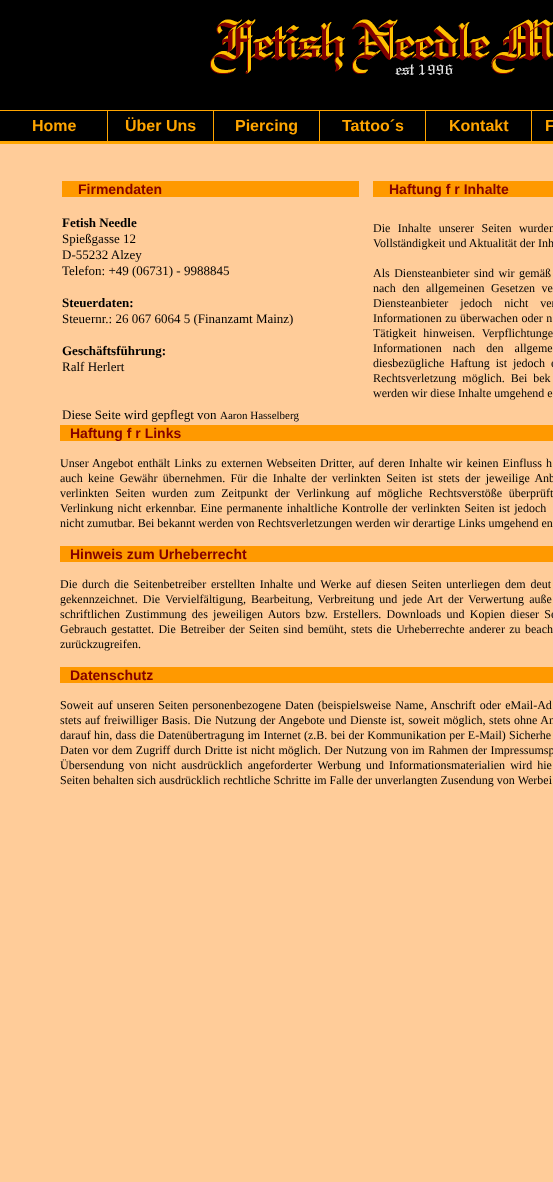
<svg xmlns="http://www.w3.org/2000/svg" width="553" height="1182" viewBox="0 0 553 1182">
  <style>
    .t1 { font: bold 16px Liberation Sans; fill: #ffa500; }
    .t2 { font: bold 14px Liberation Sans; fill: #840000; }
    .t3 { font: bold 13px Liberation Serif; fill: #000; }
    .t4 { font: 13px Liberation Serif; fill: #000; }
    .t5 { font: 11px Liberation Serif; fill: #000; }
    .t6 { font: 12px Liberation Serif; fill: #000; }
  </style>
  <rect width="100%" height="100%" fill="#fc9"/>
  <rect x="0" y="0" width="553" height="110" fill="#000"/>
  <rect x="0" y="110" width="553" height="1" fill="#ffa500"/>
  <image x="210" y="19" width="343" height="56" href="images/1.png"/>
  <rect x="0" y="111" width="553" height="30" fill="#000"/>
  <rect x="0" y="141" width="553" height="3" fill="#ffa500"/>
  <rect x="107" y="111" width="1" height="30" fill="#ffa500"/>
  <text x="32" y="131" class="t1">Home</text>
  <rect x="213" y="111" width="1" height="30" fill="#ffa500"/>
  <text x="125" y="131" class="t1">Über Uns</text>
  <rect x="319" y="111" width="1" height="30" fill="#ffa500"/>
  <text x="235" y="131" class="t1">Piercing</text>
  <rect x="425" y="111" width="1" height="30" fill="#ffa500"/>
  <text x="342" y="131" class="t1">Tattoo´s</text>
  <rect x="531" y="111" width="1" height="30" fill="#ffa500"/>
  <text x="449" y="131" class="t1">Kontakt</text>
  <text x="545" y="131" class="t1">F</text>
  <rect x="62" y="181" width="297" height="16" fill="#f90"/>
  <text x="78" y="194" class="t2">Firmendaten</text>
  <rect x="373" y="181" width="180" height="16" fill="#f90"/>
  <text x="389" y="194" class="t2">Haftung f r Inhalte</text>
  <text x="62" y="227" class="t3">Fetish Needle</text>
  <text x="62" y="243" class="t4">Spießgasse 12</text>
  <text x="62" y="259" class="t4">D-55232 Alzey</text>
  <text x="62" y="275" class="t4">Telefon: +49 (06731) - 9988845</text>
  <text x="62" y="307" class="t3">Steuerdaten:</text>
  <text x="62" y="323" class="t4">Steuernr.: 26 067 6064 5 (Finanzamt Mainz)</text>
  <text x="62" y="355" class="t3">Geschäftsführung:</text>
  <text x="62" y="371" class="t4">Ralf Herlert</text>
  <text x="62" y="419" class="t4">Diese Seite wird gepflegt von</text>
  <text x="220" y="419" class="t5">Aaron Hasselberg</text>
  <text x="373" y="232" word-spacing="4.5" class="t6">Die Inhalte unserer Seiten wurden</text>
  <text x="373" y="247" class="t6">Vollständigkeit und Aktualität der Inh</text>
  <text x="373" y="277" word-spacing="1.5" class="t6">Als Diensteanbieter sind wir gemäß</text>
  <text x="373" y="292" word-spacing="3.5" class="t6">nach den allgemeinen Gesetzen ve</text>
  <text x="373" y="307" word-spacing="9" class="t6">Diensteanbieter jedoch nicht ver</text>
  <text x="373" y="322" word-spacing="0.5" class="t6">Informationen zu überwachen oder n</text>
  <text x="373" y="337" word-spacing="4" class="t6">Tätigkeit hinweisen. Verpflichtunge</text>
  <text x="373" y="352" word-spacing="8" class="t6">Informationen nach den allgeme</text>
  <text x="373" y="367" word-spacing="3" class="t6">diesbezügliche Haftung ist jedoch e</text>
  <text x="373" y="382" word-spacing="3" class="t6">Rechtsverletzung möglich. Bei bek</text>
  <text x="373" y="397" class="t6">werden wir diese Inhalte umgehend e</text>
  <rect x="60" y="425" width="493" height="16" fill="#f90"/>
  <text x="70" y="438" class="t2">Haftung f r Links</text>
  <text x="60" y="467" word-spacing="1.1" class="t6">Unser Angebot enthält Links zu externen Webseiten Dritter, auf deren Inhalte wir keinen Einfluss h</text>
  <text x="60" y="482" word-spacing="2.4" class="t6">auch keine Gewähr übernehmen. Für die Inhalte der verlinkten Seiten ist stets der jeweilige Anb</text>
  <text x="60" y="497" word-spacing="3.5" class="t6">verlinkten Seiten wurden zum Zeitpunkt der Verlinkung auf mögliche Rechtsverstöße überprüft</text>
  <text x="60" y="512" word-spacing="1.25" class="t6">Verlinkung nicht erkennbar. Eine permanente inhaltliche Kontrolle der verlinkten Seiten ist jedoch</text>
  <text x="60" y="527" class="t6">nicht zumutbar. Bei bekannt werden von Rechtsverletzungen werden wir derartige Links umgehend en</text>
  <rect x="60" y="546" width="493" height="16" fill="#f90"/>
  <text x="70" y="559" class="t2">Hinweis zum Urheberrecht</text>
  <text x="60" y="588" word-spacing="1.75" class="t6">Die durch die Seitenbetreiber erstellten Inhalte und Werke auf diesen Seiten unterliegen dem deut</text>
  <text x="60" y="603" word-spacing="2.1" class="t6">gekennzeichnet. Die Vervielfältigung, Bearbeitung, Verbreitung und jede Art der Verwertung auße</text>
  <text x="60" y="618" word-spacing="2.25" class="t6">schriftlichen Zustimmung des jeweiligen Autors bzw. Erstellers. Downloads und Kopien dieser Se</text>
  <text x="60" y="633" word-spacing="1.4" class="t6">Gebrauch gestattet. Die Betreiber der Seiten sind bemüht, stets die Urheberrechte anderer zu beach</text>
  <text x="60" y="648" class="t6">zurückzugreifen.</text>
  <rect x="60" y="667" width="493" height="16" fill="#f90"/>
  <text x="70" y="680" class="t2">Datenschutz</text>
  <text x="60" y="709" word-spacing="1.1" class="t6">Soweit auf unseren Seiten personenbezogene Daten (beispielsweise Name, Anschrift oder eMail-Ad</text>
  <text x="60" y="724" word-spacing="0.6" class="t6">stets auf freiwilliger Basis. Die Nutzung der Angebote und Dienste ist, soweit möglich, stets ohne An</text>
  <text x="60" y="739" word-spacing="0.3" class="t6">darauf hin, dass die Datenübertragung im Internet (z.B. bei der Kommunikation per E-Mail) Sicherhe</text>
  <text x="60" y="754" word-spacing="0.5" class="t6">Daten vor dem Zugriff durch Dritte ist nicht möglich. Der Nutzung von im Rahmen der Impressumsp</text>
  <text x="60" y="769" word-spacing="2.1" class="t6">Übersendung von nicht ausdrücklich angeforderter Werbung und Informationsmaterialien wird hie</text>
  <text x="60" y="784" class="t6">Seiten behalten sich ausdrücklich rechtliche Schritte im Falle der unverlangten Zusendung von Werbei</text>
</svg>
